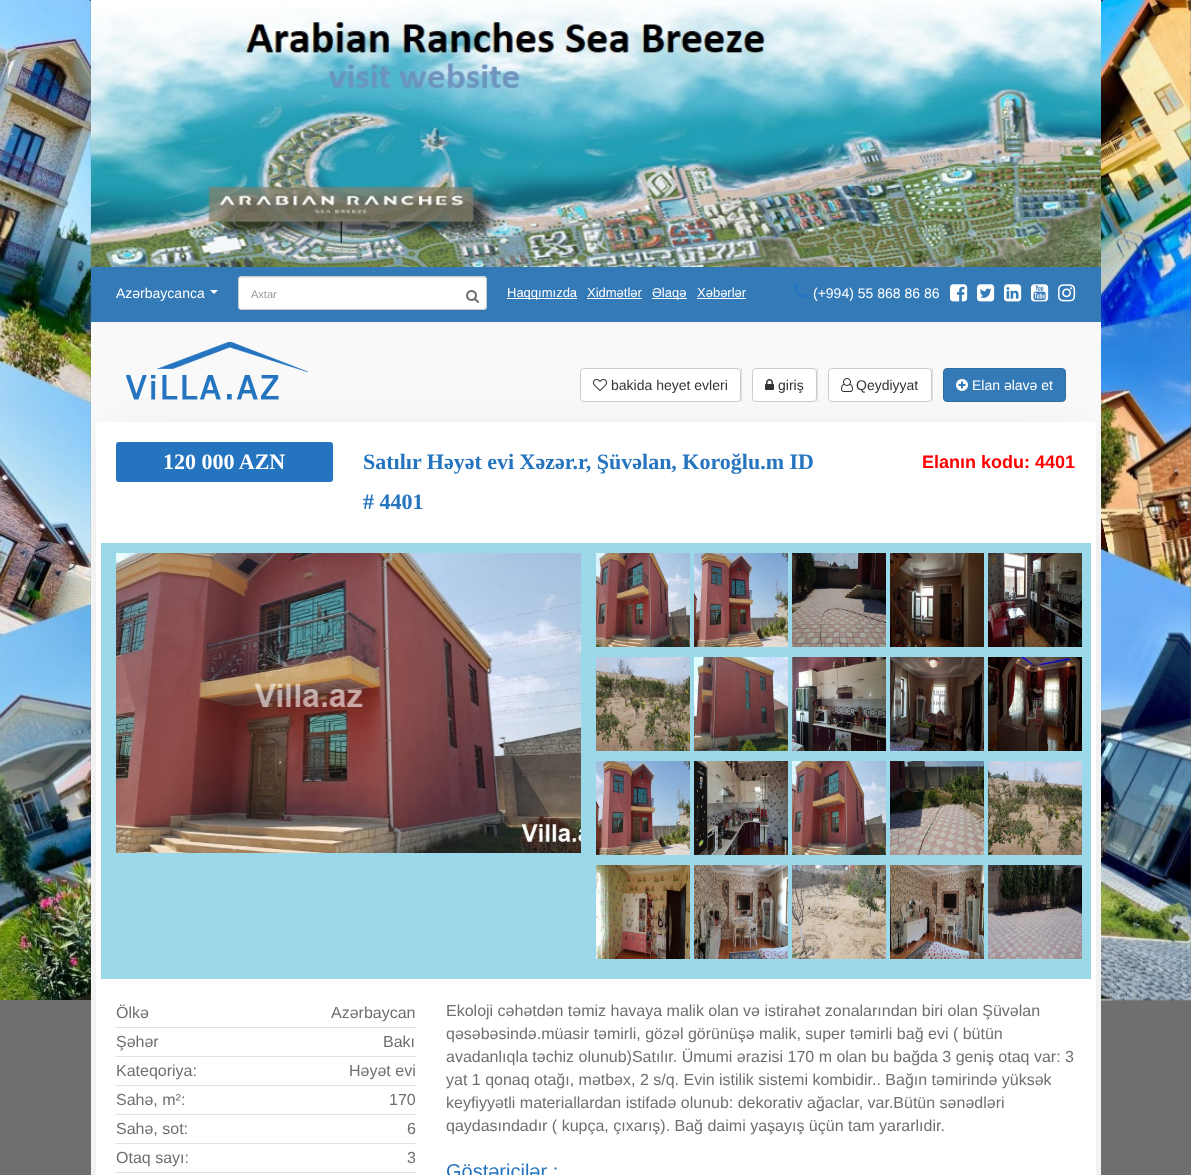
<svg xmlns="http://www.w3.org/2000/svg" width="1191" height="1175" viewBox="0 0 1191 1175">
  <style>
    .t1 { font: 14px Liberation Sans; fill: #fff; }
    .t2 { font: 11px Liberation Sans; fill: #999; }
    .t3 { font: 13px Liberation Sans; fill: #fff; }
    .t4 { font: 14px Liberation Sans; fill: #333; }
    .t5 { font: bold 22px Liberation Serif; fill: #fff; }
    .t6 { font: bold 22px Liberation Serif; fill: #2474bf; }
    .t7 { font: bold 18px Liberation Sans; fill: #f00; }
    .t8 { font: 16px Liberation Sans; fill: #6f6f6f; }
    .t9 { font: 20px Liberation Sans; fill: #2474bf; }
  </style>
  <rect width="100%" height="100%" fill="#f9f9f9"/>
  <rect x="116" y="447" width="960" height="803" fill="#00000026" filter="blur(25px)"/>
  <rect x="0" y="0" width="91" height="1175" fill="#6f6f6f"/>
  <image x="0" y="0" width="91" height="1000" href="images/1.png"/>
  <image x="91" y="0" width="1010" height="267" href="images/2.png"/>
  <rect x="1101" y="0" width="90" height="1175" fill="#6f6f6f"/>
  <image x="1101" y="0" width="90" height="1001" href="images/3.png"/>
  <rect x="91" y="267" width="1010" height="55" fill="#337ab7"/>
  <text x="116" y="298" class="t1">Azərbaycanca</text>
  <path d="M210 290H218L214 294Z" fill="#fff"/>
  <rect x="238" y="276" width="249" height="34" rx="4" fill="#fff"/>
  <path d="M242 278H484L486 279V281C486 279 485 277 483 277H242C240 277 239 279 239 281C239 279 240 278 242 278Z" fill="#ececec"/>
  <rect x="238.5" y="276.5" width="248" height="33" rx="3.5" fill="none" stroke="#ccc"/>
  <text x="251" y="298" class="t2">Axtar</text>
  <image x="466" y="290" width="13" height="13" href="images/4.png"/>
  <rect x="507" y="298" width="70" height="1" fill="#fff"/>
  <text x="507" y="297" class="t3">Haqqımızda</text>
  <text x="587" y="297" class="t3">Xidmətlər</text>
  <rect x="587" y="298" width="55" height="1" fill="#fff"/>
  <rect x="652" y="298" width="35" height="1" fill="#fff"/>
  <text x="652" y="297" class="t3">Əlaqə</text>
  <text x="697" y="297" class="t3">Xəbərlər</text>
  <rect x="697" y="298" width="49" height="1" fill="#fff"/>
  <image x="793" y="283" width="16" height="16" href="images/5.png"/>
  <text x="813" y="298" class="t1">(+994) 55 868 86 86</text>
  <image x="950" y="284" width="18" height="18" href="images/6.png"/>
  <image x="977" y="284" width="18" height="18" href="images/7.png"/>
  <image x="1004" y="284" width="18" height="18" href="images/8.png"/>
  <image x="1031" y="284" width="18" height="18" href="images/9.png"/>
  <image x="1058" y="284" width="18" height="18" href="images/10.png"/>
  <image x="126" y="342" width="182" height="58" href="images/11.png"/>
  <rect x="741" y="368" width="1" height="34" fill="#dedede"/>
  <rect x="580.5" y="368.5" width="160" height="33" rx="3.5" fill="#fff" stroke="#ccc"/>
  <image x="593" y="379" width="14" height="12" href="images/12.png"/>
  <text x="611" y="390" class="t4">bakida heyet evleri</text>
  <rect x="817" y="368" width="1" height="34" fill="#dedede"/>
  <rect x="752.5" y="368.5" width="64" height="33" rx="3.5" fill="#fff" stroke="#ccc"/>
  <image x="765" y="379" width="9" height="11" href="images/13.png"/>
  <text x="778" y="390" class="t4">giriş</text>
  <rect x="932" y="368" width="1" height="34" fill="#dedede"/>
  <rect x="828.5" y="368.5" width="103" height="33" rx="3.5" fill="#fff" stroke="#ccc"/>
  <image x="841" y="378" width="12" height="14" href="images/14.png"/>
  <text x="856" y="390" class="t4">Qeydiyyat</text>
  <rect x="943.5" y="368.5" width="122" height="33" rx="3.5" fill="#337ab7" stroke="#2e6da4"/>
  <image x="956" y="379" width="12" height="12" href="images/15.png"/>
  <text x="972" y="390" class="t1">Elan əlavə et</text>
  <rect x="96" y="422" width="1000" height="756" rx="3" fill="#fff"/>
  <rect x="116" y="442" width="217" height="40" rx="3" fill="#2474bf"/>
  <text x="163" y="469" class="t5">120 000 AZN</text>
  <text x="363" y="469" class="t6">Satılır Həyət evi Xəzər.r, Şüvəlan, Koroğlu.m ID</text>
  <text x="363" y="509" class="t6"># 4401</text>
  <text x="922" y="468" class="t7">Elanın kodu: 4401</text>
  <rect x="101" y="543" width="990" height="436" fill="#9bd8ea"/>
  <image x="116" y="553" width="465" height="300" href="images/16.png"/>
  <image x="596" y="553" width="94" height="94" href="images/17.png"/>
  <image x="694" y="553" width="94" height="94" href="images/18.png"/>
  <image x="792" y="553" width="94" height="94" href="images/19.png"/>
  <image x="890" y="553" width="94" height="94" href="images/20.png"/>
  <image x="988" y="553" width="94" height="94" href="images/21.png"/>
  <image x="596" y="657" width="94" height="94" href="images/22.png"/>
  <image x="694" y="657" width="94" height="94" href="images/23.png"/>
  <image x="792" y="657" width="94" height="94" href="images/24.png"/>
  <image x="890" y="657" width="94" height="94" href="images/25.png"/>
  <image x="988" y="657" width="94" height="94" href="images/26.png"/>
  <image x="596" y="761" width="94" height="94" href="images/27.png"/>
  <image x="694" y="761" width="94" height="94" href="images/28.png"/>
  <image x="792" y="761" width="94" height="94" href="images/29.png"/>
  <image x="890" y="761" width="94" height="94" href="images/30.png"/>
  <image x="988" y="761" width="94" height="94" href="images/31.png"/>
  <image x="596" y="865" width="94" height="94" href="images/32.png"/>
  <image x="694" y="865" width="94" height="94" href="images/33.png"/>
  <image x="792" y="865" width="94" height="94" href="images/34.png"/>
  <image x="890" y="865" width="94" height="94" href="images/35.png"/>
  <image x="988" y="865" width="94" height="94" href="images/36.png"/>
  <rect x="115" y="1027" width="301" height="1" fill="#e2e2e2"/>
  <text x="116" y="1018" class="t8">Ölkə</text>
  <text x="331" y="1018" class="t8">Azərbaycan</text>
  <rect x="115" y="1056" width="301" height="1" fill="#e2e2e2"/>
  <text x="116" y="1047" class="t8">Şəhər</text>
  <text x="383" y="1047" class="t8">Bakı</text>
  <rect x="115" y="1085" width="301" height="1" fill="#e2e2e2"/>
  <text x="116" y="1076" class="t8">Kateqoriya:</text>
  <text x="349" y="1076" class="t8">Həyət evi</text>
  <rect x="115" y="1114" width="301" height="1" fill="#e2e2e2"/>
  <text x="116" y="1105" class="t8">Sahə, m²:</text>
  <text x="389" y="1105" class="t8">170</text>
  <rect x="115" y="1143" width="301" height="1" fill="#e2e2e2"/>
  <text x="116" y="1134" class="t8">Sahə, sot:</text>
  <text x="407" y="1134" class="t8">6</text>
  <rect x="115" y="1172" width="301" height="1" fill="#e2e2e2"/>
  <text x="116" y="1163" class="t8">Otaq sayı:</text>
  <text x="407" y="1163" class="t8">3</text>
  <text x="446" y="1016" class="t8">Ekoloji cəhətdən təmiz havaya malik olan və istirahət zonalarından biri olan Şüvəlan</text>
  <text x="446" y="1039" class="t8">qəsəbəsində.müasir təmirli, gözəl görünüşə malik, super təmirli bağ evi ( bütün</text>
  <text x="446" y="1062" class="t8">avadanlıqla təchiz olunub)Satılır. Ümumi ərazisi 170 m olan bu bağda 3 geniş otaq var: 3</text>
  <text x="446" y="1085" class="t8">yat 1 qonaq otağı, mətbəx, 2 s/q. Evin istilik sistemi kombidir.. Bağın təmirində yüksək</text>
  <text x="446" y="1108" class="t8">keyfiyyətli materiallardan istifadə olunub: dekorativ ağaclar, var.Bütün sənədləri</text>
  <text x="446" y="1131" class="t8">qaydasındadır ( kupça, çıxarış). Bağ daimi yaşayış üçün tam yararlıdir.</text>
  <text x="446" y="1178" class="t9">Göstəricilər :</text>
</svg>
